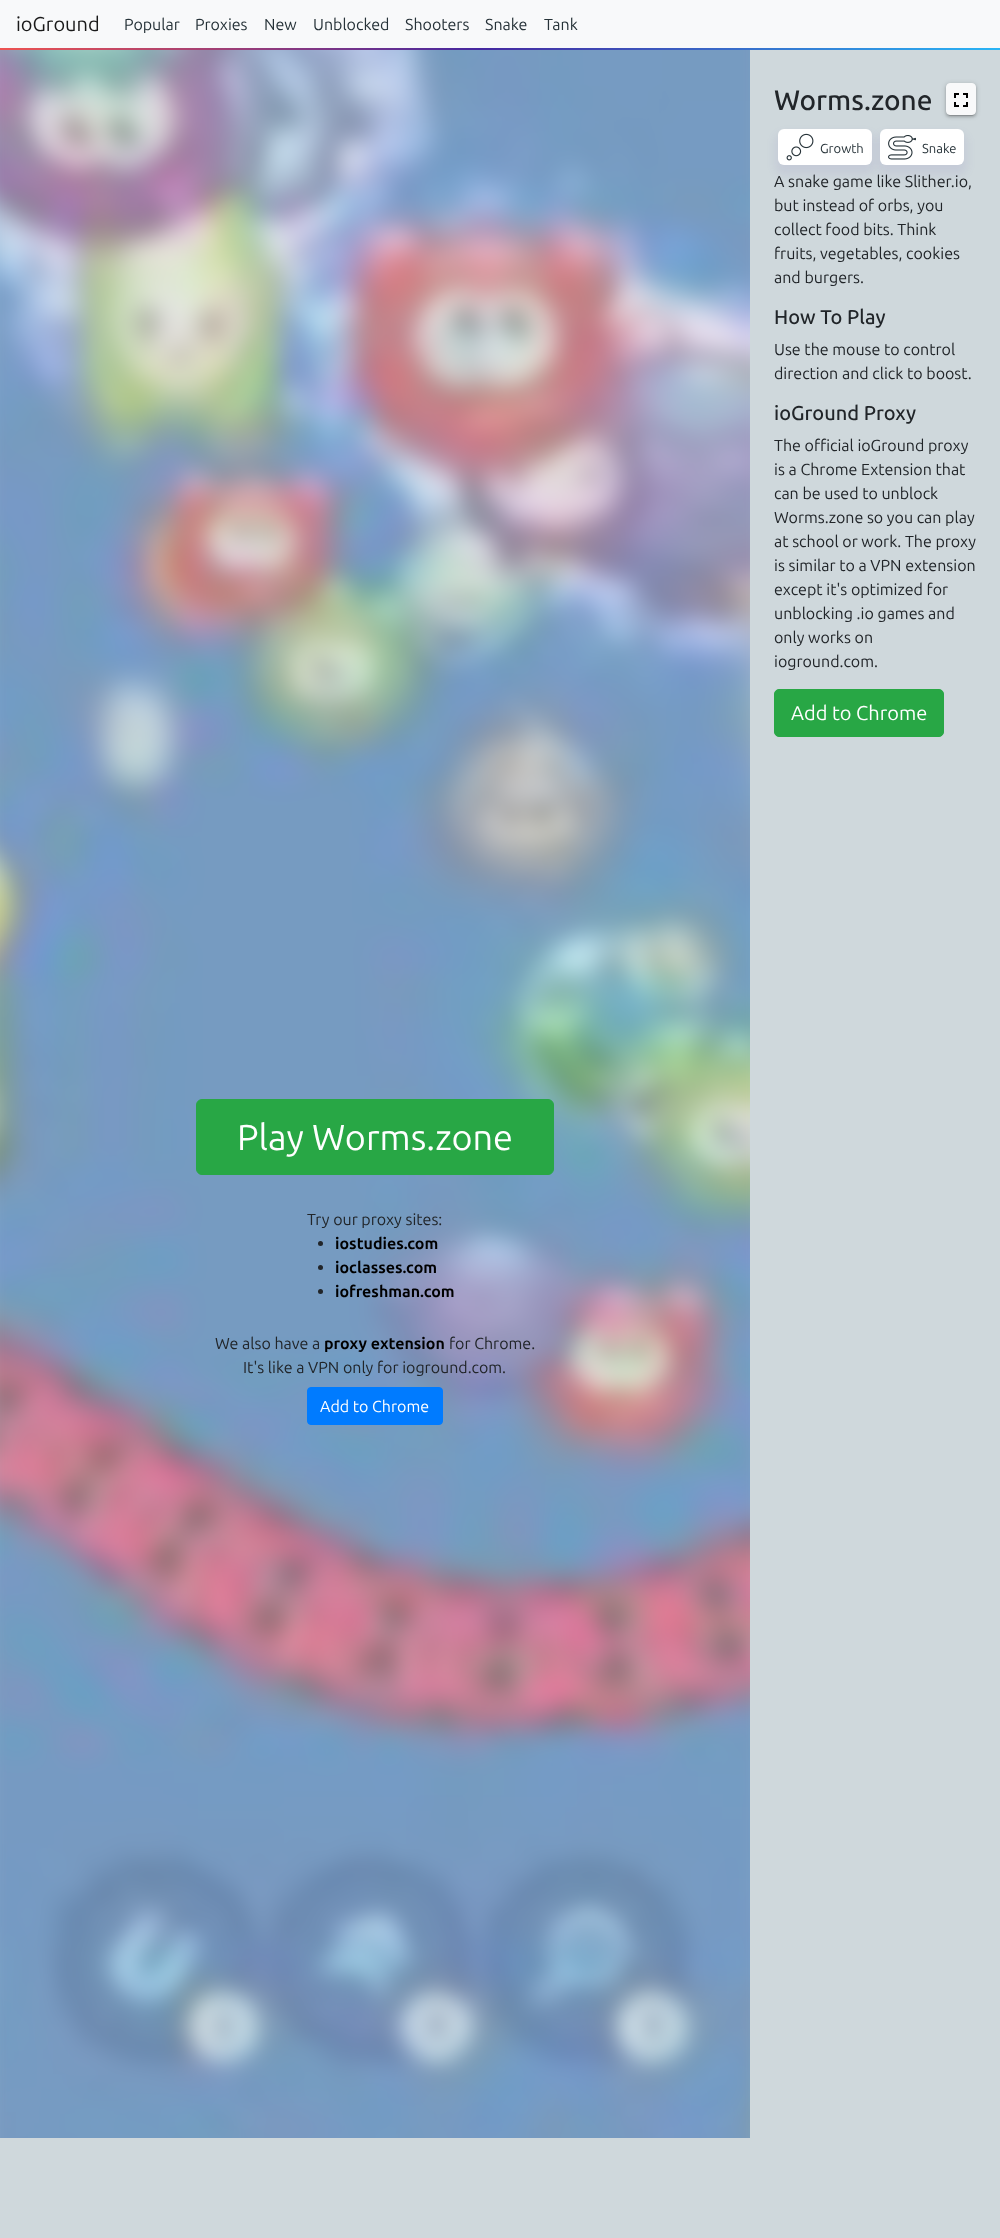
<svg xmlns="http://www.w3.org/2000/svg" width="1000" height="2238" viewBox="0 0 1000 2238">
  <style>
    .t1 { font: 20px Ubuntu; fill: #191919; }
    .t2 { font: 16px Ubuntu; fill: #263238; }
    .t3 { font: 500 28px Ubuntu; fill: #212529; }
    .t4 { font: 13px Ubuntu; fill: #263238; }
    .t5 { font: 16px Ubuntu; fill: #212529; }
    .t6 { font: 500 20px Ubuntu; fill: #212529; }
    .t7 { font: 20px Ubuntu; fill: #fff; }
    .t8 { font: 36px Ubuntu; fill: #fff; }
    .t9 { font: bold 16px Ubuntu; fill: #000; }
    .t10 { font: 16px Ubuntu; fill: #fff; }
  </style>
  <rect width="100%" height="100%" fill="#cfd8dc"/>
  <rect x="0" y="0" width="1000" height="48" fill="#f8f9fa"/>
  <image x="0" y="48" width="1000" height="2" href="images/1.png"/>
  <text x="16" y="31" class="t1">ioGround</text>
  <text x="124" y="30" class="t2">Popular</text>
  <text x="195" y="30" class="t2">Proxies</text>
  <text x="264" y="30" class="t2">New</text>
  <text x="313" y="30" class="t2">Unblocked</text>
  <text x="405" y="30" class="t2">Shooters</text>
  <text x="485" y="30" class="t2">Snake</text>
  <text x="544" y="30" class="t2">Tank</text>
  <text x="774" y="110" class="t3">Worms.zone</text>
  <rect x="946" y="84" width="30" height="32" rx="4" fill="#00000033" filter="blur(2.5px)"/>
  <rect x="948" y="88" width="26" height="28" rx="2" fill="#0000001f" filter="blur(0.5px)"/>
  <rect x="946" y="85" width="30" height="32" rx="4" fill="#00000024" filter="blur(1px)"/>
  <rect x="946.5" y="83.5" width="29" height="31" rx="3.5" fill="#f8f9fa" stroke="#f8f9fa"/>
  <image x="954" y="93" width="14" height="14" href="images/2.png"/>
  <rect x="775" y="133" width="100" height="42" rx="9" fill="#4527a012" filter="blur(4.5px)"/>
  <rect x="778" y="129" width="94" height="36" rx="6" fill="#fff"/>
  <image x="786" y="133" width="28" height="28" href="images/3.png"/>
  <text x="820" y="153" class="t4">Growth</text>
  <rect x="877" y="133" width="90" height="42" rx="9" fill="#4527a012" filter="blur(4.5px)"/>
  <rect x="880" y="129" width="84" height="36" rx="6" fill="#fff"/>
  <image x="888" y="135" width="28" height="25" href="images/4.png"/>
  <text x="922" y="153" class="t4">Snake</text>
  <text x="774" y="187" class="t5">A snake game like Slither.io,</text>
  <text x="774" y="211" class="t5">but instead of orbs, you</text>
  <text x="774" y="235" class="t5">collect food bits. Think</text>
  <text x="774" y="259" class="t5">fruits, vegetables, cookies</text>
  <text x="774" y="283" class="t5">and burgers.</text>
  <text x="774" y="324" class="t6">How To Play</text>
  <text x="774" y="355" class="t5">Use the mouse to control</text>
  <text x="774" y="379" class="t5">direction and click to boost.</text>
  <text x="774" y="420" class="t6">ioGround Proxy</text>
  <text x="774" y="451" class="t5">The official ioGround proxy</text>
  <text x="774" y="475" class="t5">is a Chrome Extension that</text>
  <text x="774" y="499" class="t5">can be used to unblock</text>
  <text x="774" y="523" class="t5">Worms.zone so you can play</text>
  <text x="774" y="547" class="t5">at school or work. The proxy</text>
  <text x="774" y="571" class="t5">is similar to a VPN extension</text>
  <text x="774" y="595" class="t5">except it's optimized for</text>
  <text x="774" y="619" class="t5">unblocking .io games and</text>
  <text x="774" y="643" class="t5">only works on</text>
  <text x="774" y="667" class="t5">ioground.com.</text>
  <rect x="774.5" y="689.5" width="169" height="47" rx="4.5" fill="#28a745" stroke="#28a745"/>
  <text x="791" y="720" class="t7">Add to Chrome</text>
  <image x="0" y="50" width="750" height="2088" href="images/5.png"/>
  <rect x="196.5" y="1099.5" width="357" height="75" rx="5.5" fill="#28a745" stroke="#28a745"/>
  <text x="237" y="1150" class="t8">Play Worms.zone</text>
  <text x="307" y="1225" class="t5">Try our proxy sites:</text>
  <circle cx="320.5" cy="1243.5" r="2.5" fill="#212529"/>
  <text x="335" y="1249" class="t9">iostudies.com</text>
  <circle cx="320.5" cy="1267.5" r="2.5" fill="#212529"/>
  <text x="335" y="1273" class="t9">ioclasses.com</text>
  <circle cx="320.5" cy="1291.5" r="2.5" fill="#212529"/>
  <text x="335" y="1297" class="t9">iofreshman.com</text>
  <text x="215" y="1349" class="t5">We also have a</text>
  <text x="324" y="1349" class="t9">proxy extension</text>
  <text x="449" y="1349" class="t5">for Chrome.</text>
  <text x="243" y="1373" class="t5">It's like a VPN only for ioground.com.</text>
  <rect x="307.5" y="1387.5" width="135" height="37" rx="3.5" fill="#007bff" stroke="#007bff"/>
  <text x="320" y="1412" class="t10">Add to Chrome</text>
</svg>
